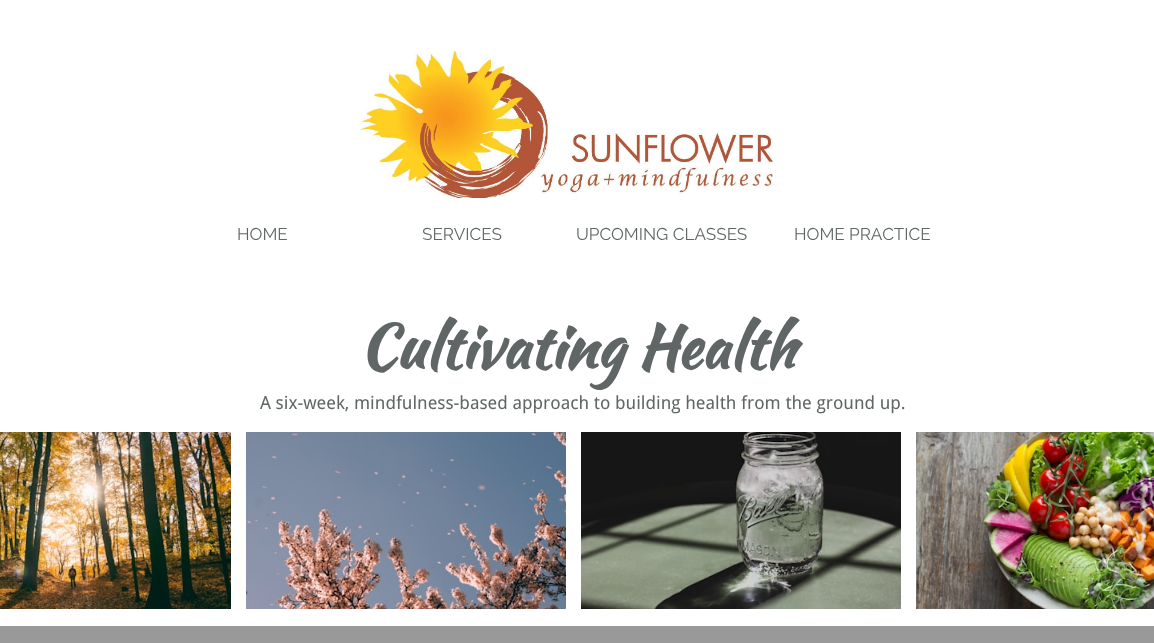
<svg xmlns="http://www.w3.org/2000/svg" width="1154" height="643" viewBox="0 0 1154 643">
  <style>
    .t1 { font: 17px Raleway; fill: #606666; }
    .t2 { font: bold 60px Kaushan Script; fill: #606666; }
    .t3 { font: 18px Droid Sans; fill: #606666; }
  </style>
  <rect width="100%" height="100%" fill="#fff"/>
  <image x="360" y="51" width="413" height="147" href="images/1.png"/>
  <text x="237" y="240" class="t1">HOME</text>
  <text x="422" y="240" class="t1">SERVICES</text>
  <text x="576" y="240" class="t1">UPCOMING CLASSES</text>
  <text x="794" y="240" class="t1">HOME PRACTICE</text>
  <text x="359" y="368" class="t2">Cultivating Health</text>
  <text x="260" y="409" class="t3">A six-week, mindfulness-based approach to building health from the ground up.</text>
  <image x="0" y="432" width="231" height="177" href="images/2.png"/>
  <image x="246" y="432" width="320" height="177" href="images/3.png"/>
  <image x="581" y="432" width="320" height="177" href="images/4.png"/>
  <image x="916" y="432" width="238" height="177" href="images/5.png"/>
  <rect x="0" y="626" width="1154" height="17" fill="#999"/>
</svg>
